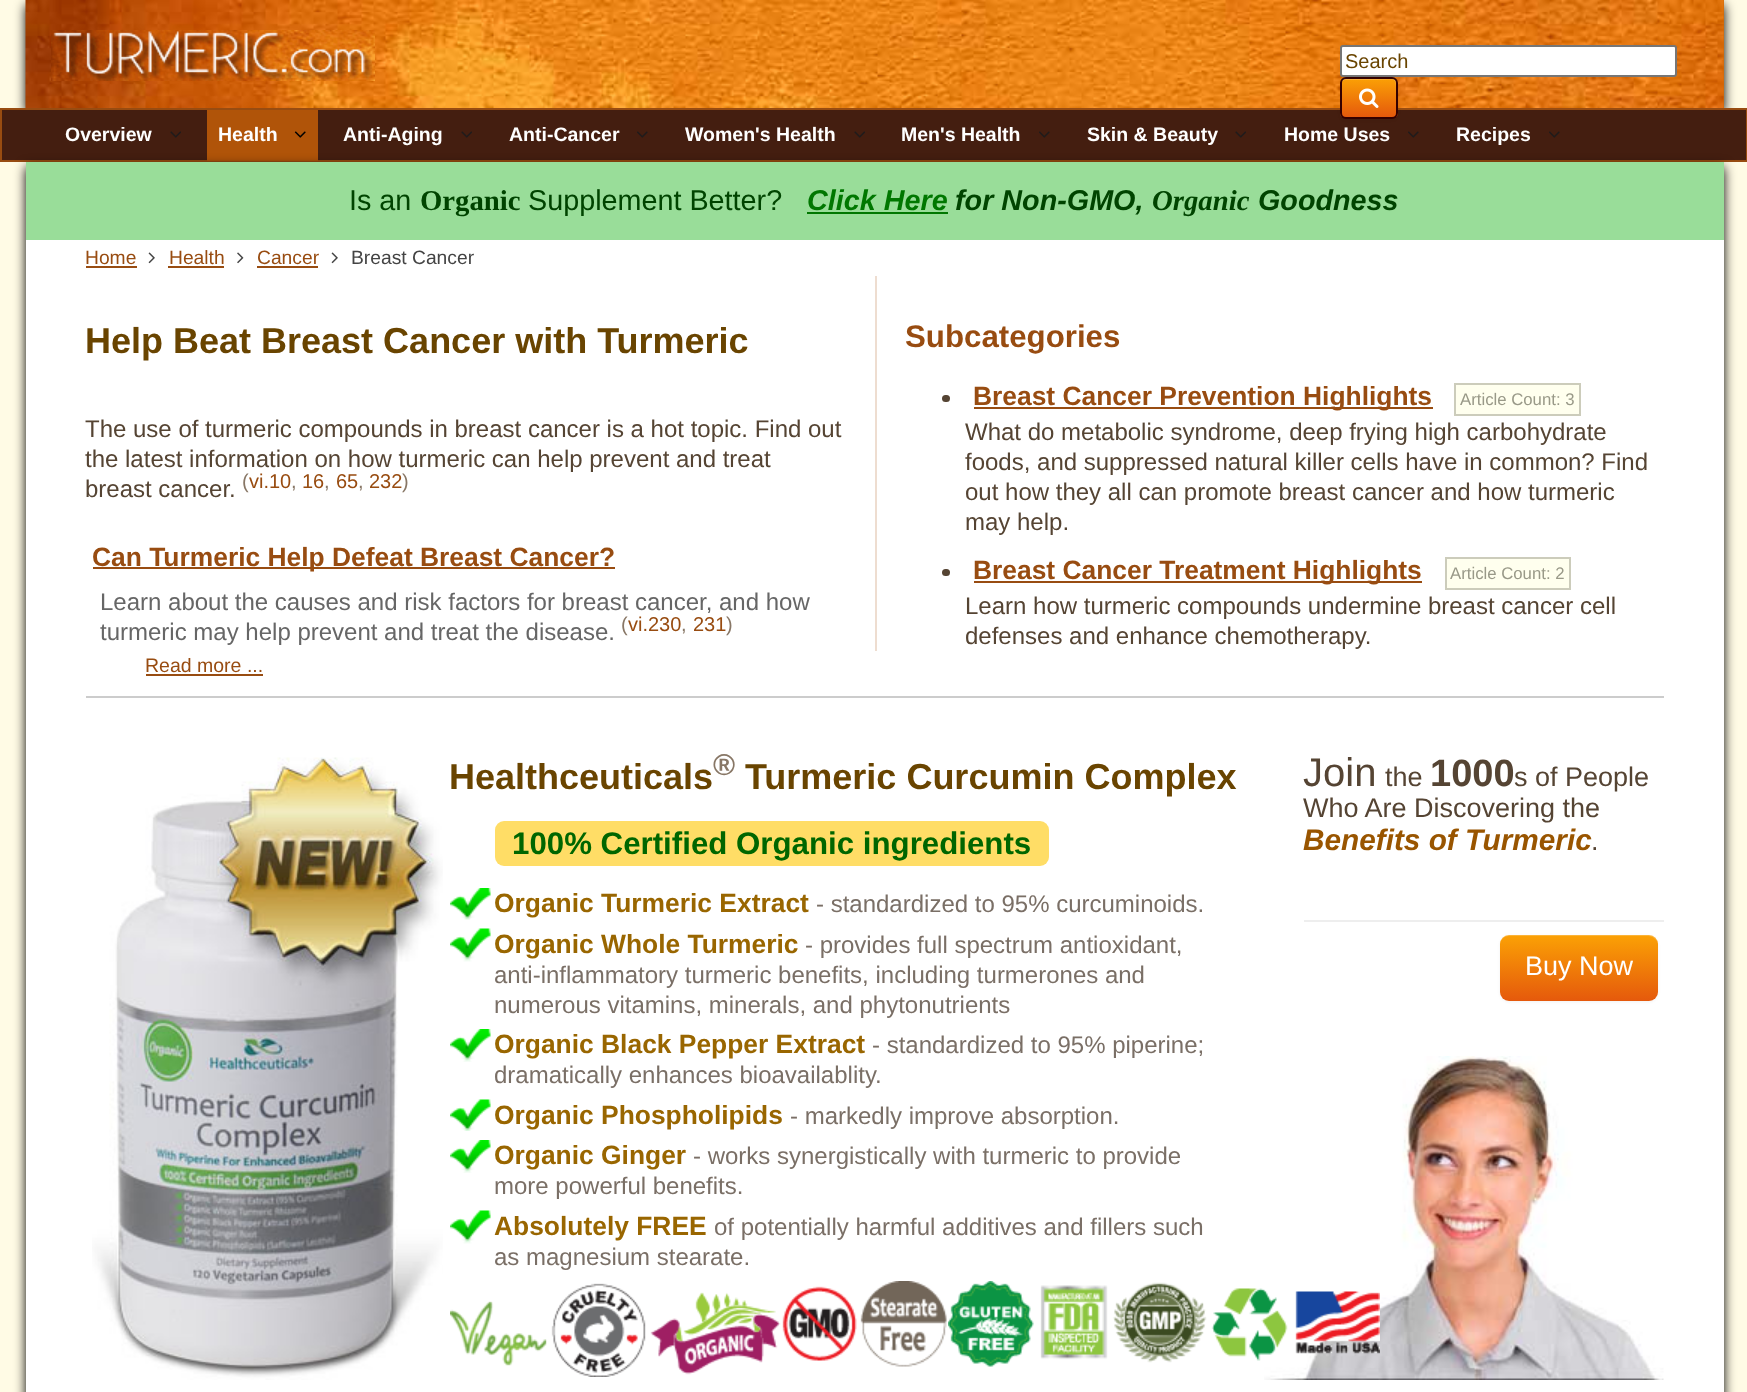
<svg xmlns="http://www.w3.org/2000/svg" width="1747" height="1392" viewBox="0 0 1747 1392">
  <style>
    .t1 { font: 20px Liberation Sans; fill: #694400; }
    .t2 { font: bold 19.5px Liberation Sans; fill: #fff; }
    .t3 { font: 28.75px Liberation Sans; fill: #040; }
    .t4 { font: bold 28.75px Liberation Serif; fill: #040; }
    .t5 { font: italic bold 28.75px Liberation Sans; fill: #070; }
    .t6 { font: italic bold 28.75px Liberation Sans; fill: #040; }
    .t7 { font: italic bold 28.75px Liberation Serif; fill: #040; }
    .t8 { font: 19.25px Liberation Sans; fill: #984c11; }
    .t9 { font: 19.25px Liberation Sans; fill: #444; }
    .t10 { font: bold 36px Liberation Sans; fill: #694400; }
    .t11 { font: 24px Liberation Sans; fill: #543; }
    .t12 { font: 20px Liberation Sans; fill: #876; }
    .t13 { font: 20px Liberation Sans; fill: #984c11; }
    .t14 { font: bold 26.4px Liberation Sans; fill: #984c11; }
    .t15 { font: 24px Liberation Sans; fill: #666; }
    .t16 { font: 19.5px Liberation Sans; fill: #984c11; }
    .t17 { font: bold 31.25px Liberation Sans; fill: #984c11; }
    .t18 { font: 16.75px Liberation Sans; fill: #998; }
    .t19 { font: bold 30px Liberation Sans; fill: #876; }
    .t20 { font: 40px Liberation Sans; fill: #543; }
    .t21 { font: 27px Liberation Sans; fill: #543; }
    .t22 { font: bold 38px Liberation Sans; fill: #543; }
    .t23 { font: italic bold 29.75px Liberation Sans; fill: #950; }
    .t24 { font: 27px Liberation Sans; fill: #fff; }
    .t25 { font: bold 31.25px Liberation Sans; fill: #060; }
    .t26 { font: bold 26.4px Liberation Sans; fill: #960; }
    .t27 { font: 24px Liberation Sans; fill: #7a6f66; }
  </style>
  <defs>
    <clipPath id="clip1"><rect x="1340" y="77" width="58" height="42" rx="6"/></clipPath>
    <linearGradient id="g1" gradientUnits="userSpaceOnUse" x1="1369" y1="78" x2="1369" y2="117"><stop offset="0" stop-color="#fba105"/><stop offset="1" stop-color="#e5590c"/></linearGradient>
    <linearGradient id="g2" gradientUnits="userSpaceOnUse" x1="1579" y1="935" x2="1579" y2="1001"><stop offset="0" stop-color="#fba105"/><stop offset="1" stop-color="#e5590c"/></linearGradient>
  </defs>
  <rect width="100%" height="100%" fill="#fffbe5"/>
  <rect x="26" y="5" width="1698" height="108" fill="#000" filter="blur(6px)"/>
  <rect x="1723" y="0" width="1" height="108" fill="#cf6b0d"/>
  <image x="25" y="0" width="1699" height="108" href="images/1.png"/>
  <image x="51" y="30" width="324" height="51" href="images/2.png"/>
  <rect x="1341" y="46" width="335" height="30" rx="2" fill="#fff" stroke="#767676" stroke-width="2"/>
  <text x="1345" y="68" class="t1">Search</text>
  <rect x="1" y="109" width="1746" height="52" fill="#441e10" stroke="#984c11" stroke-width="2"/>
  <rect x="1340" y="78" width="58" height="42" rx="6" fill="#0000000d" filter="blur(1.5px)"/>
  <g clip-path="url(#clip1)">
    <rect x="1340" y="78" width="58" height="39" fill="url(#g1)"/>
  </g>
  <path d="M1346 80H1377C1396 80 1396 76 1396 94V115C1398 113 1397 110 1397 107V98C1397 75 1400 78 1377 78H1354C1348 78 1341 76 1341 84C1341 82 1343 80 1346 80Z" fill="#ffffff33"/>
  <rect x="1341" y="78" width="56" height="40" rx="5" fill="none" stroke="#300" stroke-width="2"/>
  <image x="1359" y="88" width="20" height="20" href="images/3.png"/>
  <text x="65" y="141" class="t2">Overview</text>
  <image x="170" y="131" width="11" height="7" href="images/4.png"/>
  <rect x="207" y="110" width="111" height="51" fill="#b05409"/>
  <text x="218" y="141" class="t2">Health</text>
  <image x="294" y="131" width="12" height="7" href="images/5.png"/>
  <text x="343" y="141" class="t2">Anti-Aging</text>
  <image x="461" y="131" width="11" height="7" href="images/4.png"/>
  <text x="509" y="141" class="t2">Anti-Cancer</text>
  <image x="637" y="131" width="11" height="7" href="images/6.png"/>
  <text x="685" y="141" class="t2">Women's Health</text>
  <image x="854" y="131" width="11" height="7" href="images/4.png"/>
  <text x="901" y="141" class="t2">Men's Health</text>
  <image x="1039" y="131" width="11" height="7" href="images/6.png"/>
  <text x="1087" y="141" class="t2">Skin &amp; Beauty</text>
  <image x="1235" y="131" width="11" height="7" href="images/4.png"/>
  <text x="1284" y="141" class="t2">Home Uses</text>
  <image x="1408" y="131" width="11" height="7" href="images/6.png"/>
  <text x="1456" y="141" class="t2">Recipes</text>
  <image x="1549" y="131" width="11" height="7" href="images/6.png"/>
  <rect x="26" y="167" width="1698" height="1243" fill="#000" filter="blur(6px)"/>
  <rect x="26" y="240" width="1698" height="1152" fill="#fff"/>
  <rect x="26" y="162" width="1698" height="78" fill="#9d9"/>
  <text x="349" y="210" class="t3">Is an</text>
  <text x="420" y="210" class="t4">Organic</text>
  <text x="528" y="210" class="t3">Supplement Better?</text>
  <text x="807" y="210" class="t5">Click Here</text>
  <rect x="807" y="212" width="141" height="2" fill="#070"/>
  <text x="955" y="210" class="t6">for Non-GMO,</text>
  <text x="1152" y="210" class="t7">Organic</text>
  <text x="1258" y="210" class="t6">Goodness</text>
  <text x="85" y="264" class="t8">Home</text>
  <rect x="86" y="266" width="51" height="2" fill="#984c11"/>
  <image x="148" y="252" width="7" height="12" href="images/7.png"/>
  <text x="169" y="264" class="t8">Health</text>
  <rect x="168" y="266" width="56" height="2" fill="#984c11"/>
  <image x="237" y="252" width="7" height="12" href="images/8.png"/>
  <text x="257" y="264" class="t8">Cancer</text>
  <rect x="257" y="266" width="61" height="2" fill="#984c11"/>
  <image x="331" y="252" width="7" height="12" href="images/7.png"/>
  <text x="351" y="264" class="t9">Breast Cancer</text>
  <text x="85" y="353" class="t10">Help Beat Breast Cancer with Turmeric</text>
  <text x="85" y="437" class="t11">The use of turmeric compounds in breast cancer is a hot topic. Find out</text>
  <text x="85" y="467" class="t11">the latest information on how turmeric can help prevent and treat</text>
  <text x="85" y="497" class="t11">breast cancer.</text>
  <text x="242" y="488" class="t12">(</text>
  <text x="249" y="488" class="t13">vi.10</text>
  <text x="291" y="488" class="t12">,</text>
  <text x="302" y="488" class="t13">16</text>
  <text x="324" y="488" class="t12">,</text>
  <text x="336" y="488" class="t13">65</text>
  <text x="358" y="488" class="t12">,</text>
  <text x="369" y="488" class="t13">232</text>
  <text x="402" y="488" class="t12">)</text>
  <rect x="93" y="567" width="522" height="2" fill="#984c11"/>
  <text x="92" y="566" class="t14">Can Turmeric Help Defeat Breast Cancer?</text>
  <text x="100" y="610" class="t15">Learn about the causes and risk factors for breast cancer, and how</text>
  <text x="100" y="640" class="t15">turmeric may help prevent and treat the disease.</text>
  <text x="621" y="631" class="t12">(</text>
  <text x="628" y="631" class="t13">vi.230</text>
  <text x="681" y="631" class="t12">,</text>
  <text x="693" y="631" class="t13">231</text>
  <text x="726" y="631" class="t12">)</text>
  <text x="145" y="672" class="t16">Read more ...</text>
  <rect x="146" y="674" width="117" height="2" fill="#984c11"/>
  <rect x="875" y="276" width="2" height="375" fill="#eeddd0"/>
  <text x="905" y="347" class="t17">Subcategories</text>
  <rect x="942" y="395" width="8" height="7" rx="3.5" fill="#543"/>
  <rect x="974" y="407" width="459" height="2" fill="#984c11"/>
  <text x="973" y="405" class="t14">Breast Cancer Prevention Highlights</text>
  <rect x="1455" y="384" width="125" height="31" fill="#ffe" stroke="#ccb" stroke-width="2"/>
  <text x="1460" y="405" class="t18">Article Count: 3</text>
  <text x="965" y="440" class="t11">What do metabolic syndrome, deep frying high carbohydrate</text>
  <text x="965" y="470" class="t11">foods, and suppressed natural killer cells have in common? Find</text>
  <text x="965" y="500" class="t11">out how they all can promote breast cancer and how turmeric</text>
  <text x="965" y="530" class="t11">may help.</text>
  <rect x="942" y="569" width="8" height="7" rx="3.5" fill="#543"/>
  <rect x="974" y="581" width="448" height="2" fill="#984c11"/>
  <text x="973" y="579" class="t14">Breast Cancer Treatment Highlights</text>
  <rect x="1446" y="558" width="124" height="31" fill="#ffe" stroke="#ccb" stroke-width="2"/>
  <text x="1450" y="579" class="t18">Article Count: 2</text>
  <text x="965" y="614" class="t11">Learn how turmeric compounds undermine breast cancer cell</text>
  <text x="965" y="644" class="t11">defenses and enhance chemotherapy.</text>
  <image x="1264" y="1056" width="400" height="324" href="images/9.png"/>
  <rect x="86" y="696" width="1578" height="2" fill="#ccc"/>
  <image x="92" y="757" width="351" height="623" href="images/10.png"/>
  <text x="449" y="789" class="t10">Healthceuticals</text>
  <text x="713" y="775" class="t19">®</text>
  <text x="745" y="789" class="t10">Turmeric Curcumin Complex</text>
  <text x="1303" y="786" class="t20">Join</text>
  <text x="1385" y="786" class="t21">the</text>
  <text x="1430" y="786" class="t22">1000</text>
  <text x="1514" y="786" class="t21">s of People</text>
  <text x="1303" y="817" class="t21">Who Are Discovering the</text>
  <text x="1303" y="850" class="t23">Benefits of Turmeric</text>
  <text x="1591" y="850" class="t21">.</text>
  <rect x="1304" y="920" width="360" height="2" fill="#eee"/>
  <rect x="1500" y="936" width="158" height="66" rx="9" fill="#0000000d" filter="blur(1.5px)"/>
  <rect x="1500" y="935" width="158" height="66" rx="9" fill="url(#g2)"/>
  <path d="M1509 936H1648C1653 936 1658 940 1658 945C1658 929 1634 935 1626 935H1532C1524 935 1500 929 1500 945C1500 940 1504 936 1509 936Z" fill="#ffffff33"/>
  <text x="1525" y="975" class="t24">Buy Now</text>
  <rect x="495" y="821" width="554" height="45" rx="9" fill="#fd6"/>
  <text x="512" y="854" class="t25">100% Certified Organic ingredients</text>
  <image x="450" y="888" width="41" height="32" href="images/11.png"/>
  <text x="494" y="912" class="t26">Organic Turmeric Extract</text>
  <text x="816" y="912" class="t27">- standardized to 95% curcuminoids.</text>
  <image x="450" y="928" width="41" height="34" href="images/12.png"/>
  <text x="494" y="953" class="t26">Organic Whole Turmeric</text>
  <text x="805" y="953" class="t27">- provides full spectrum antioxidant,</text>
  <text x="494" y="983" class="t27">anti-inflammatory turmeric benefits, including turmerones and</text>
  <text x="494" y="1013" class="t27">numerous vitamins, minerals, and phytonutrients</text>
  <image x="450" y="1029" width="41" height="33" href="images/13.png"/>
  <text x="494" y="1053" class="t26">Organic Black Pepper Extract</text>
  <text x="872" y="1053" class="t27">- standardized to 95% piperine;</text>
  <text x="494" y="1083" class="t27">dramatically enhances bioavailablity.</text>
  <image x="450" y="1099" width="41" height="32" href="images/14.png"/>
  <text x="494" y="1124" class="t26">Organic Phospholipids</text>
  <text x="790" y="1124" class="t27">- markedly improve absorption.</text>
  <image x="450" y="1140" width="41" height="33" href="images/13.png"/>
  <text x="494" y="1164" class="t26">Organic Ginger</text>
  <text x="693" y="1164" class="t27">- works synergistically with turmeric to provide</text>
  <text x="494" y="1194" class="t27">more powerful benefits.</text>
  <image x="450" y="1210" width="41" height="34" href="images/12.png"/>
  <text x="494" y="1235" class="t26">Absolutely FREE</text>
  <text x="714" y="1235" class="t27">of potentially harmful additives and fillers such</text>
  <text x="494" y="1265" class="t27">as magnesium stearate.</text>
  <image x="450" y="1281" width="497" height="96" href="images/15.png"/>
  <image x="948" y="1281" width="432" height="86" href="images/16.png"/>
</svg>
